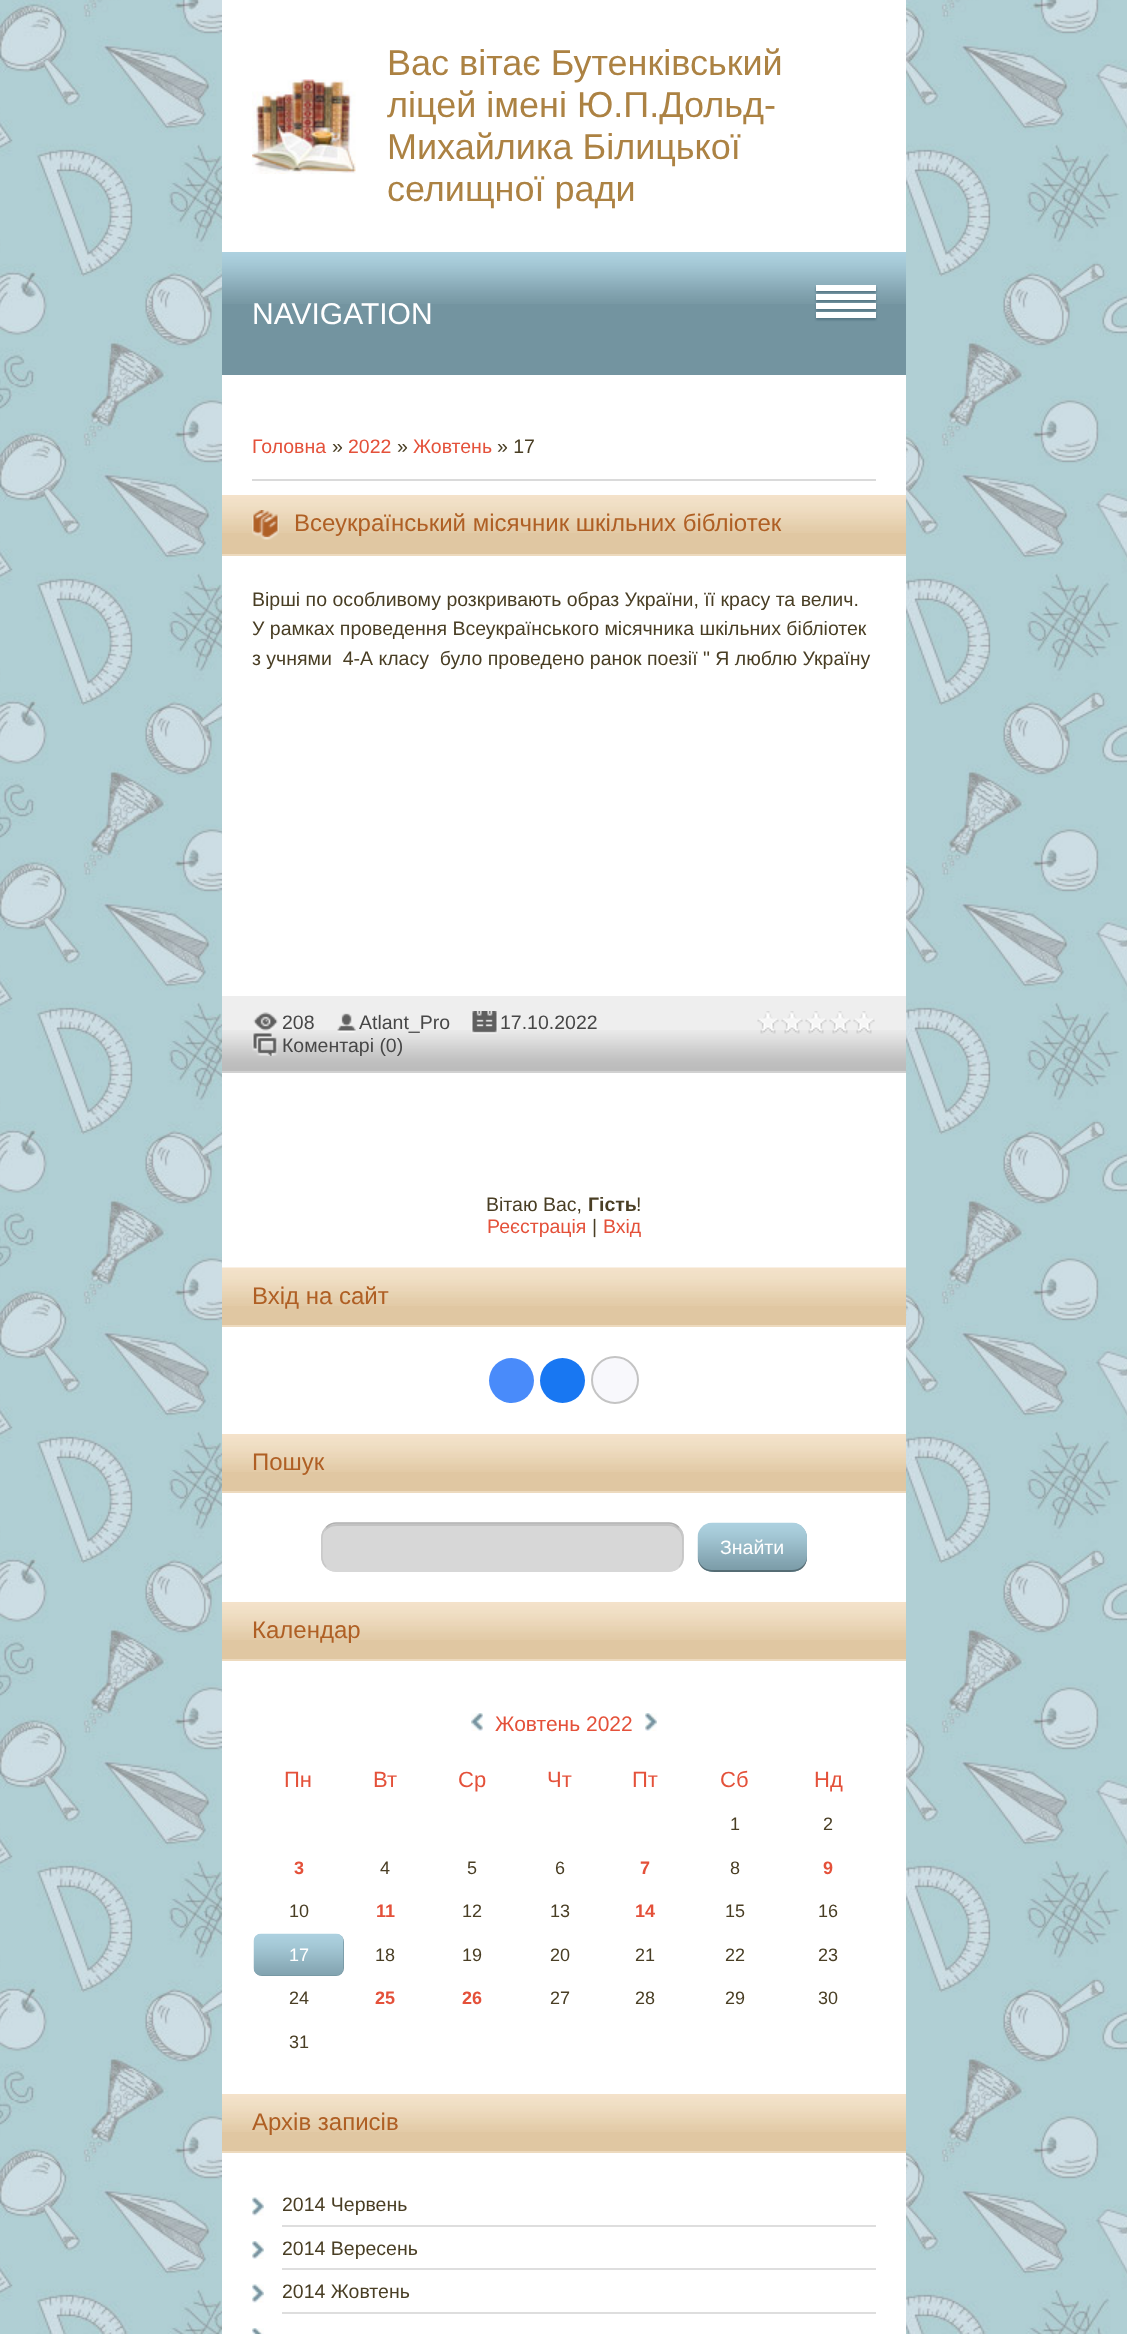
<svg xmlns="http://www.w3.org/2000/svg" width="1127" height="2334" viewBox="0 0 1127 2334">
  <style>
    .t1 { font: 36px Liberation Sans; fill: #ac8243; }
    .t2 { font: 30px Liberation Sans; fill: #fff; }
    .t3 { font: 19.5px Liberation Sans; fill: #e4513a; }
    .t4 { font: 19.5px Liberation Sans; fill: #493e24; }
    .t5 { font: 24px Liberation Sans; fill: #af5f24; }
    .t6 { font: 19.5px Liberation Sans; fill: #474747; }
    .t7 { font: bold 19.5px Liberation Sans; fill: #493e24; }
    .t8 { font: 19.5px Liberation Sans; fill: #fff; }
    .t9 { font: 21px Liberation Sans; fill: #e4513a; }
    .t10 { font: 22px Liberation Sans; fill: #e4513a; }
    .t11 { font: 18px Liberation Sans; fill: #493e24; }
    .t12 { font: bold 18px Liberation Sans; fill: #e4513a; }
    .t13 { font: 18px Liberation Sans; fill: #fff; }
  </style>
  <rect width="100%" height="100%" fill="#fff"/>
  <image x="0" y="0" width="1127" height="2334" href="images/1.png"/>
  <rect x="222" y="0" width="684" height="252" fill="#fff"/>
  <image x="252" y="79" width="104" height="95" href="images/2.png"/>
  <text x="387" y="75" class="t1">Вас вітає Бутенківський</text>
  <text x="387" y="117" class="t1">ліцей імені Ю.П.Дольд-</text>
  <text x="387" y="159" class="t1">Михайлика Білицької</text>
  <text x="387" y="201" class="t1">селищної ради</text>
  <rect x="222" y="304" width="684" height="71" fill="#7394a0"/>
  <image x="222" y="252" width="684" height="52" href="images/3.png"/>
  <text x="252" y="324" class="t2">NAVIGATION</text>
  <rect x="816" y="287" width="60" height="6" fill="#557684" filter="blur(1px)"/>
  <rect x="816" y="285" width="60" height="6" fill="#fff"/>
  <rect x="816" y="296" width="60" height="6" fill="#557684" filter="blur(1px)"/>
  <rect x="816" y="294" width="60" height="6" fill="#fff"/>
  <rect x="816" y="305" width="60" height="6" fill="#557684" filter="blur(1px)"/>
  <rect x="816" y="303" width="60" height="6" fill="#fff"/>
  <rect x="816" y="314" width="60" height="6" fill="#557684" filter="blur(1px)"/>
  <rect x="816" y="312" width="60" height="6" fill="#fff"/>
  <rect x="222" y="375" width="684" height="1959" fill="#fff"/>
  <text x="252" y="453" class="t3">Головна</text>
  <text x="332" y="453" class="t4">»</text>
  <text x="348" y="453" class="t3">2022</text>
  <text x="397" y="453" class="t4">»</text>
  <text x="413" y="453" class="t3">Жовтень</text>
  <text x="497" y="453" class="t4">» 17</text>
  <rect x="252" y="479" width="624" height="2" fill="#dadada"/>
  <rect x="222" y="533" width="684" height="21" fill="#e0c7a2"/>
  <image x="222" y="495" width="684" height="38" href="images/4.png"/>
  <rect x="222" y="554" width="684" height="2" fill="#eddabe"/>
  <image x="252" y="510" width="27" height="30" href="images/5.png"/>
  <text x="294" y="531" class="t5">Всеукраїнський місячник шкільних бібліотек</text>
  <text x="252" y="606" class="t4">Вірші по особливому розкривають образ України, її красу та велич.</text>
  <text x="252" y="635" class="t4">У рамках проведення Всеукраїнського місячника шкільних бібліотек</text>
  <text x="252" y="665" class="t4" xml:space="preserve">з учнями  4-А класу  було проведено ранок поезії " Я люблю Україну</text>
  <rect x="222" y="996" width="684" height="34" fill="#eee"/>
  <image x="222" y="1030" width="684" height="41" href="images/6.png"/>
  <rect x="222" y="1071" width="684" height="2" fill="#d1d1d1"/>
  <image x="253" y="1012" width="25" height="21" href="images/7.png"/>
  <text x="282" y="1029" class="t6">208</text>
  <image x="337" y="1013" width="19" height="20" href="images/8.png"/>
  <text x="359" y="1029" class="t6">Atlant_Pro</text>
  <image x="471" y="1011" width="27" height="23" href="images/9.png"/>
  <text x="500" y="1029" class="t6">17.10.2022</text>
  <image x="757" y="1011" width="118" height="24" href="images/10.png"/>
  <image x="252" y="1033" width="26" height="23" href="images/11.png"/>
  <text x="282" y="1052" class="t6">Коментарі (0)</text>
  <text x="486" y="1211" class="t4">Вітаю Вас,</text>
  <text x="588" y="1211" class="t7">Гість</text>
  <text x="636" y="1211" class="t4">!</text>
  <text x="487" y="1233" class="t3">Реєстрація</text>
  <text x="592" y="1233" class="t4">|</text>
  <text x="603" y="1233" class="t3">Вхід</text>
  <rect x="222" y="1306" width="684" height="19" fill="#e0c7a2"/>
  <image x="222" y="1267" width="684" height="39" href="images/12.png"/>
  <rect x="222" y="1325" width="684" height="2" fill="#eddabe"/>
  <text x="252" y="1304" class="t5">Вхід на сайт</text>
  <circle cx="511.5" cy="1380.5" r="22.5" fill="#498bfa"/>
  <circle cx="562.5" cy="1380.5" r="22.5" fill="#1877f2"/>
  <circle cx="615" cy="1380" r="23" fill="#f8f8fc" stroke="#c4c4c4" stroke-width="2"/>
  <rect x="222" y="1472" width="684" height="19" fill="#e0c7a2"/>
  <image x="222" y="1434" width="684" height="38" href="images/4.png"/>
  <rect x="222" y="1491" width="684" height="2" fill="#eddabe"/>
  <text x="252" y="1470" class="t5">Пошук</text>
  <rect x="321" y="1523" width="363" height="49" rx="15" fill="#d7d7d7"/>
  <path d="M336 1526H669C676 1526 682 1532 682 1539V1558C682 1561 681 1564 680 1566C682 1564 683 1560 683 1557V1538C683 1530 677 1524 669 1524H337C331 1524 326 1527 324 1532C327 1529 331 1526 336 1526Z" fill="#c2c2c2"/>
  <path d="M326 1527.5C328.5 1525 332 1523 336 1523H669C673 1523 676.5 1525 679 1527.5" fill="none" stroke="#b0b0b0" stroke-width="1.5"/>
  <path d="M679 1527.5C684.5 1533 683 1540.5 683 1547C683 1554 684.5 1561.5 679 1567" fill="none" stroke="#c8c8c8" stroke-width="1.5"/>
  <path d="M679 1567C676.5 1569.5 673 1571 669 1571H336C332 1571 328.5 1569.5 326 1567" fill="none" stroke="#d7d7d7" stroke-width="1.5"/>
  <path d="M326 1567C320.5 1561.5 322 1554 322 1547C322 1540.5 320.5 1533 326 1527.5" fill="none" stroke="#c8c8c8" stroke-width="1.5"/>
  <rect x="698" y="1523" width="109" height="49" rx="15" fill="#7394a0"/>
  <image x="697" y="1522" width="110" height="50" href="images/13.png"/>
  <path d="M698 1556C698 1574 713 1572 726 1572H779C792 1572 807 1574 807 1556C807 1564 800 1570 792 1570H712C704 1570 698 1564 698 1556Z" fill="#0000004d"/>
  <text x="720" y="1554" class="t8">Знайти</text>
  <rect x="222" y="1640" width="684" height="19" fill="#e0c7a2"/>
  <image x="222" y="1602" width="684" height="38" href="images/4.png"/>
  <rect x="222" y="1659" width="684" height="2" fill="#eddabe"/>
  <text x="252" y="1638" class="t5">Календар</text>
  <image x="471" y="1713" width="12" height="18" href="images/14.png"/>
  <text x="495" y="1731" class="t9">Жовтень 2022</text>
  <image x="645" y="1713" width="12" height="18" href="images/15.png"/>
  <text x="284" y="1787" class="t10">Пн</text>
  <text x="373" y="1787" class="t10">Вт</text>
  <text x="458" y="1787" class="t10">Ср</text>
  <text x="547" y="1787" class="t10">Чт</text>
  <text x="632" y="1787" class="t10">Пт</text>
  <text x="720" y="1787" class="t10">Сб</text>
  <text x="814" y="1787" class="t10">Нд</text>
  <text x="730" y="1830" class="t11">1</text>
  <text x="823" y="1830" class="t11">2</text>
  <text x="294" y="1874" class="t12">3</text>
  <text x="380" y="1874" class="t11">4</text>
  <text x="467" y="1874" class="t11">5</text>
  <text x="555" y="1874" class="t11">6</text>
  <text x="640" y="1874" class="t12">7</text>
  <text x="730" y="1874" class="t11">8</text>
  <text x="823" y="1874" class="t12">9</text>
  <text x="289" y="1917" class="t11">10</text>
  <text x="376" y="1917" class="t12">11</text>
  <text x="462" y="1917" class="t11">12</text>
  <text x="550" y="1917" class="t11">13</text>
  <text x="635" y="1917" class="t12">14</text>
  <text x="725" y="1917" class="t11">15</text>
  <text x="818" y="1917" class="t11">16</text>
  <rect x="254" y="1934" width="90" height="42" rx="8" fill="#7394a0"/>
  <image x="253" y="1933" width="91" height="43" href="images/16.png"/>
  <text x="289" y="1961" class="t13">17</text>
  <text x="375" y="1961" class="t11">18</text>
  <text x="462" y="1961" class="t11">19</text>
  <text x="550" y="1961" class="t11">20</text>
  <text x="635" y="1961" class="t11">21</text>
  <text x="725" y="1961" class="t11">22</text>
  <text x="818" y="1961" class="t11">23</text>
  <text x="289" y="2004" class="t11">24</text>
  <text x="375" y="2004" class="t12">25</text>
  <text x="462" y="2004" class="t12">26</text>
  <text x="550" y="2004" class="t11">27</text>
  <text x="635" y="2004" class="t11">28</text>
  <text x="725" y="2004" class="t11">29</text>
  <text x="818" y="2004" class="t11">30</text>
  <text x="289" y="2048" class="t11">31</text>
  <rect x="222" y="2132" width="684" height="19" fill="#e0c7a2"/>
  <image x="222" y="2094" width="684" height="38" href="images/4.png"/>
  <rect x="222" y="2151" width="684" height="2" fill="#eddabe"/>
  <text x="252" y="2130" class="t5">Архів записів</text>
  <image x="252" y="2197" width="12" height="19" href="images/17.png"/>
  <text x="282" y="2211" class="t4">2014 Червень</text>
  <rect x="282" y="2225" width="594" height="2" fill="#dedede"/>
  <image x="252" y="2241" width="12" height="18" href="images/15.png"/>
  <text x="282" y="2255" class="t4">2014 Вересень</text>
  <rect x="282" y="2268" width="594" height="2" fill="#dedede"/>
  <image x="252" y="2284" width="12" height="19" href="images/17.png"/>
  <text x="282" y="2298" class="t4">2014 Жовтень</text>
  <rect x="282" y="2312" width="594" height="2" fill="#dedede"/>
  <image x="252" y="2328" width="12" height="6" href="images/18.png"/>
</svg>
